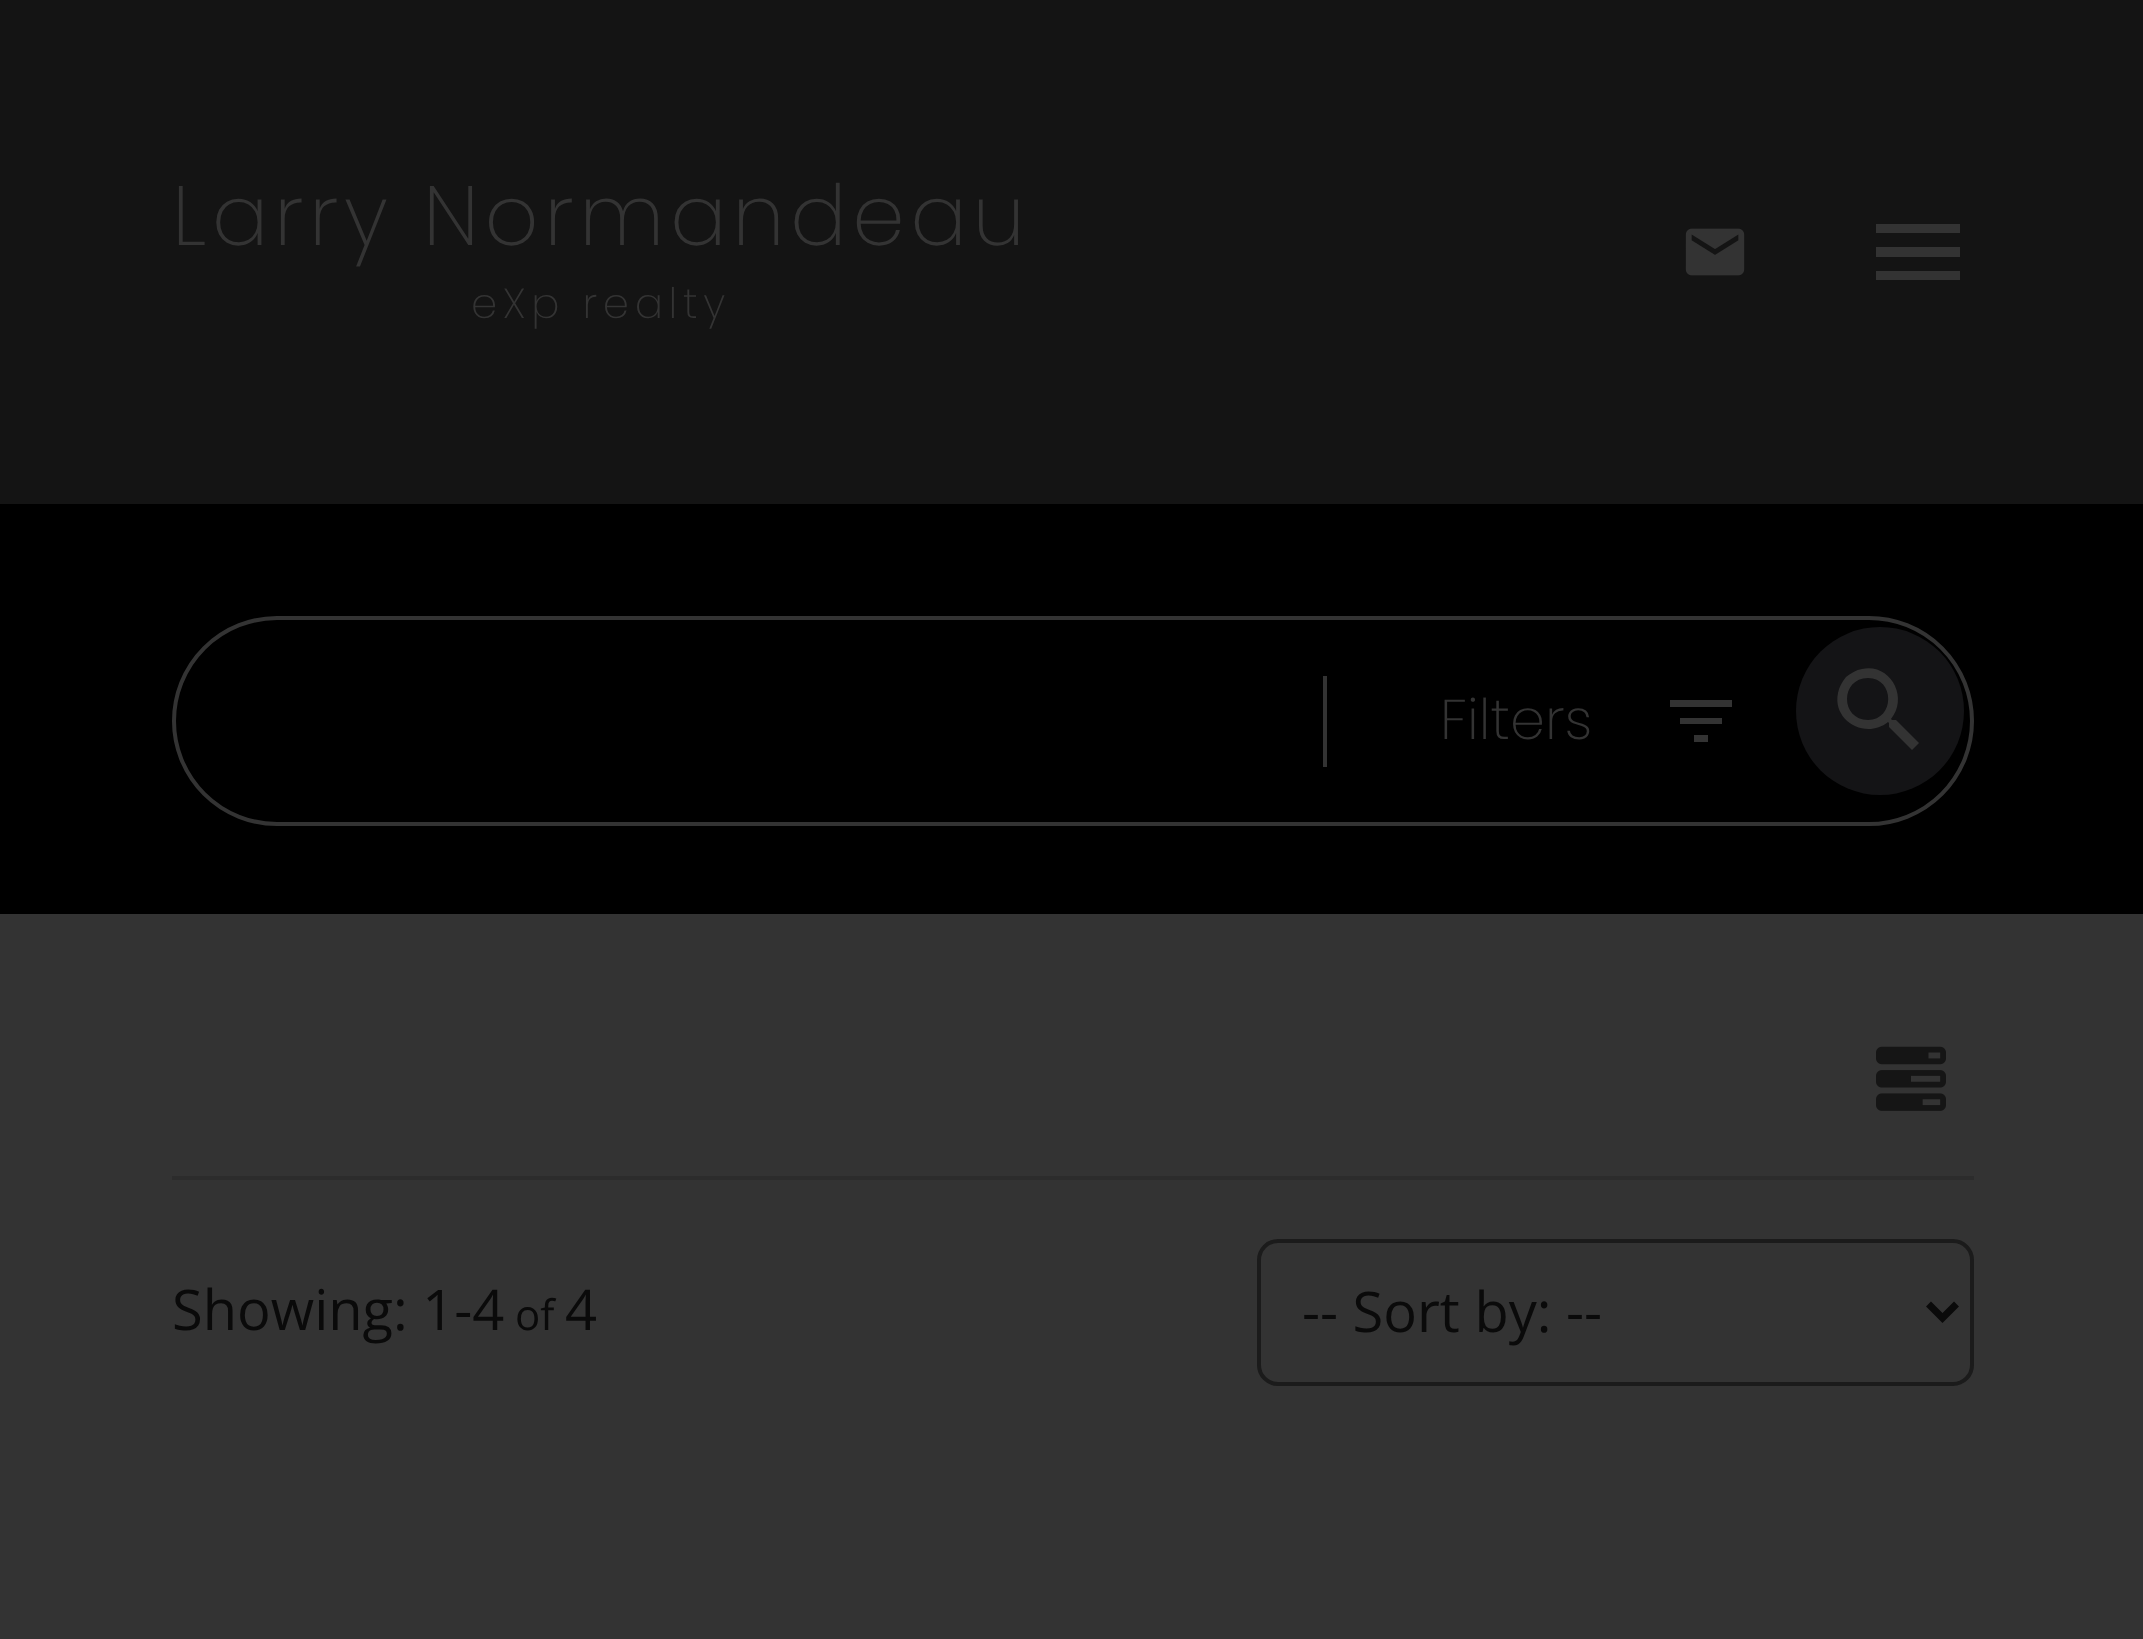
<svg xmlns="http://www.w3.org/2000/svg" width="2143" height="1639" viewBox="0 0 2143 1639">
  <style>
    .t1 { font: 200 84px Poppins; letter-spacing: 5.6px; fill: #333; }
    .t2 { font: 200 42px Poppins; letter-spacing: 5.6px; fill: #333; }
    .t3 { font: 200 56px Poppins; fill: #333; }
    .t4 { font: 56px Open Sans; fill: #0a0a0a; }
    .t5 { font: 42px Open Sans; fill: #0a0a0a; }
  </style>
  <rect width="100%" height="100%" fill="#333"/>
  <rect x="0" y="0" width="2143" height="504" fill="#141414"/>
  <text x="172" y="245" class="t1">Larry Normandeau</text>
  <text x="471" y="318" class="t2">eXp realty</text>
  <image x="1685" y="228" width="60" height="48" href="images/1.png"/>
  <path d="M1876 280H1960V271H1876ZM1876 257H1960V247H1876ZM1876 224V233H1960V224Z" fill="#333"/>
  <rect x="0" y="504" width="2143" height="410" fill="#000"/>
  <rect x="174" y="618" width="1798" height="206" rx="103" fill="none" stroke="#333" stroke-width="4"/>
  <path d="M1694 742H1708V735H1694ZM1670 700V707H1732V700ZM1680 724H1722V718H1680Z" fill="#333"/>
  <rect x="1323" y="676" width="4" height="91" fill="#333"/>
  <text x="1440" y="739" class="t3">Filters</text>
  <circle cx="1880" cy="711" r="84" fill="#141416"/>
  <path d="M1896 720H1892L1891 719C1909 697 1890 663 1862 669C1856 670 1851 673 1846 677C1842 682 1839 687 1838 693C1832 721 1866 740 1888 722L1889 723V727L1912 750L1919 743ZM1868 720C1840 720 1840 678 1868 678C1895 678 1895 720 1868 720Z" fill="#333"/>
  <image x="1876" y="1046" width="70" height="65" href="images/2.png"/>
  <rect x="172" y="1176" width="1802" height="4" fill="#2c2c2c"/>
  <text x="172" y="1330" class="t4">Showing: 1-4</text>
  <text x="515" y="1330" class="t5">of</text>
  <text x="565" y="1330" class="t4">4</text>
  <rect x="1259" y="1241" width="713" height="143" rx="19" fill="none" stroke="#1b1b1b" stroke-width="4"/>
  <path d="M1928.5 1304L1942.5 1318L1956.5 1304" fill="none" stroke="#0a0a0a" stroke-width="7"/>
  <text x="1302" y="1332" class="t4">-- Sort by: --</text>
</svg>
